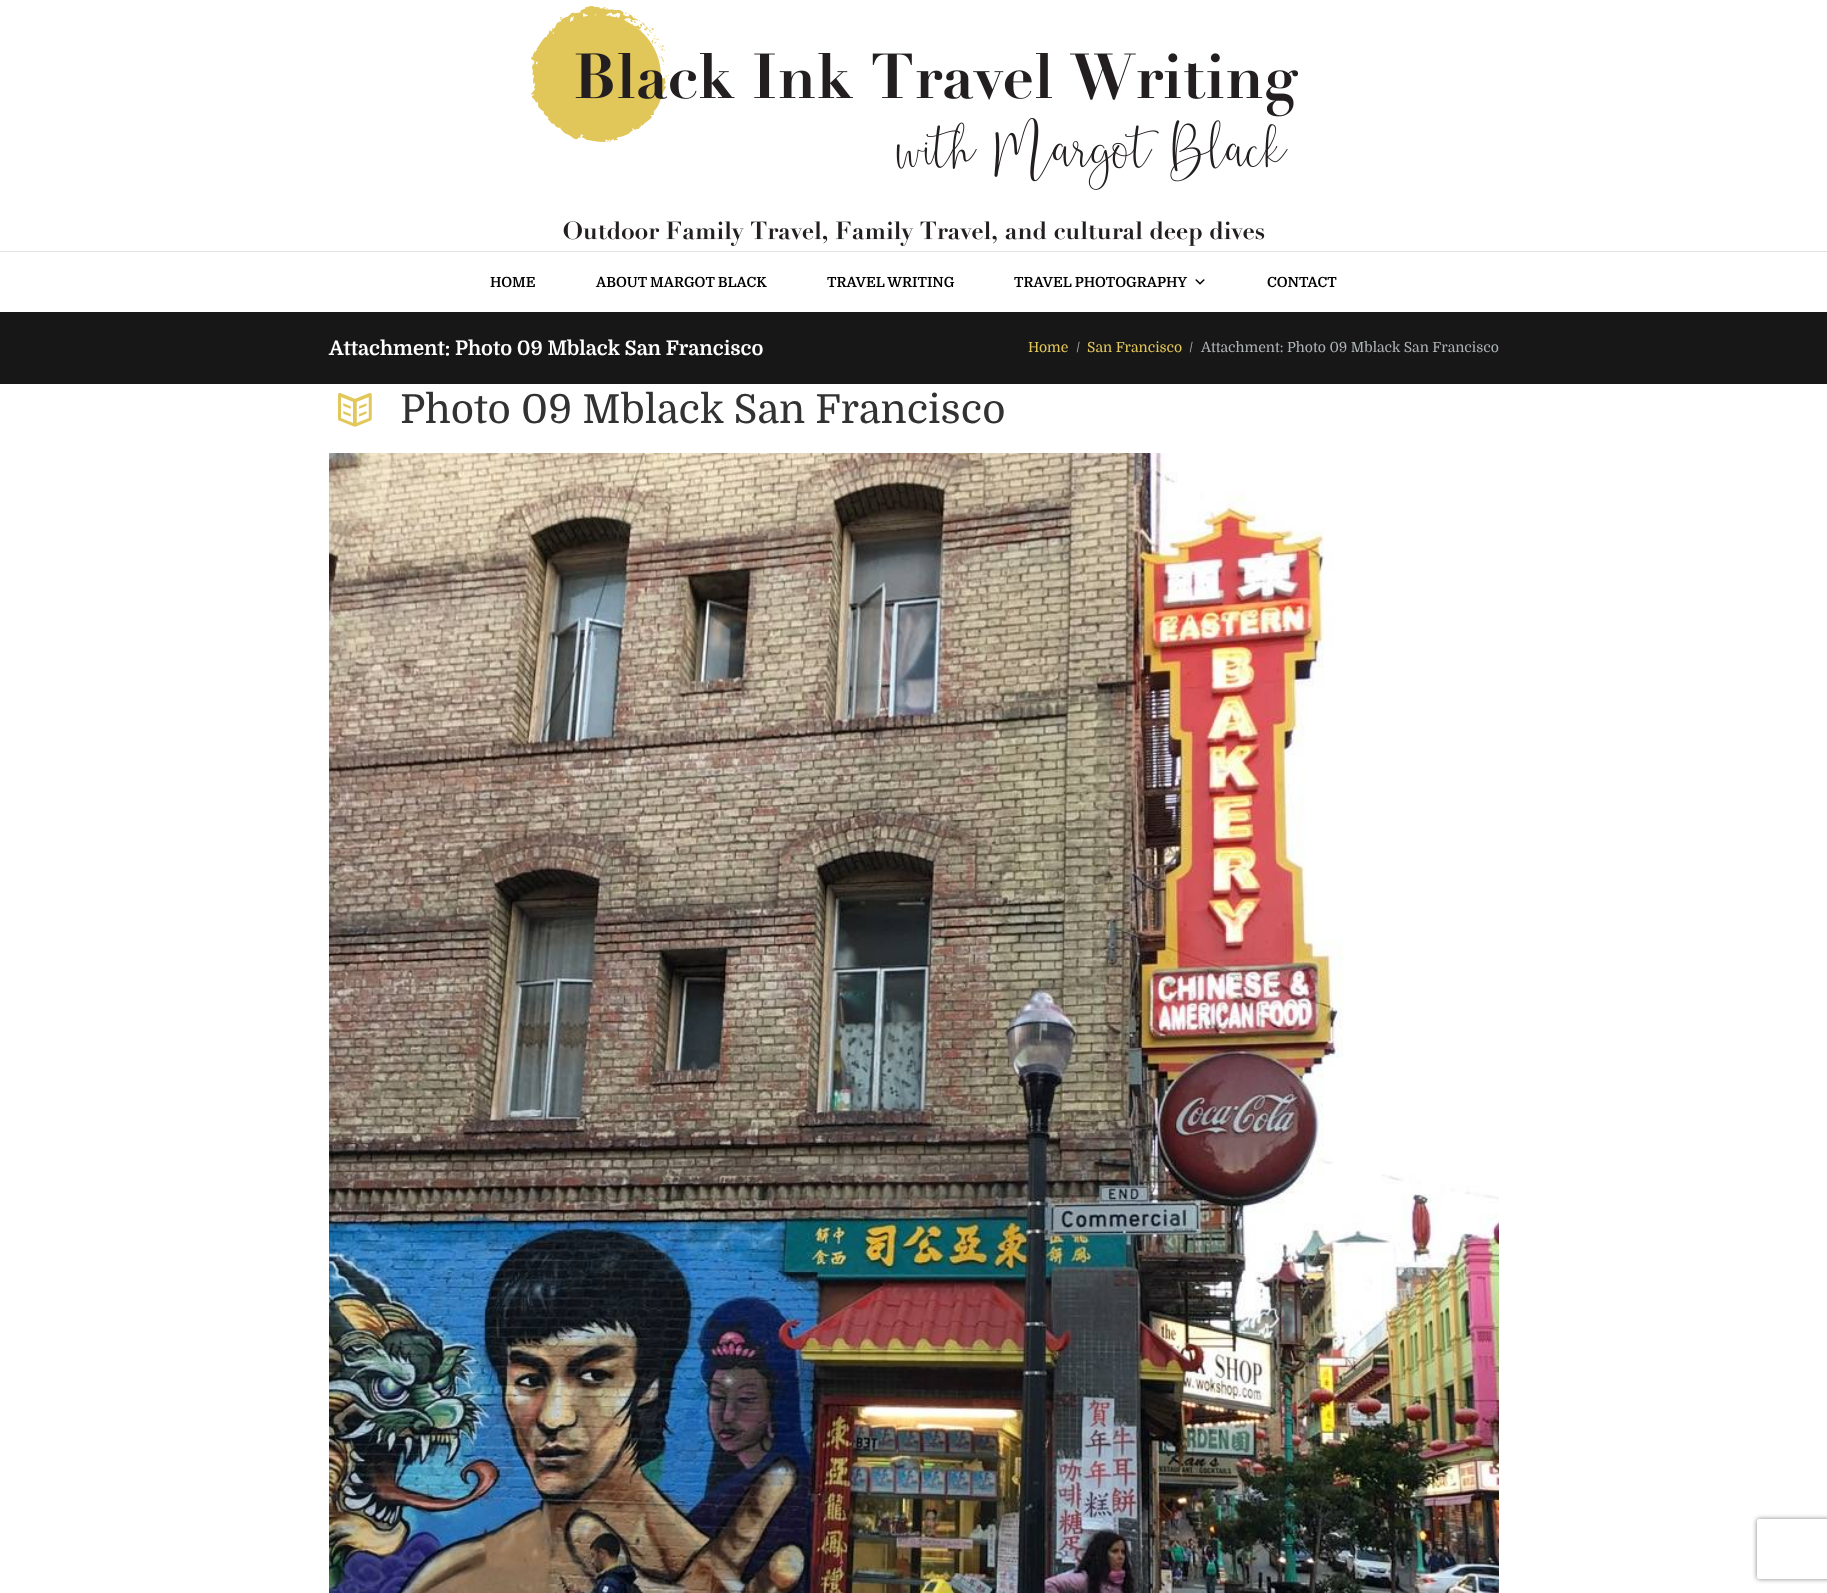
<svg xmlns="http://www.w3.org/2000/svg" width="1827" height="1593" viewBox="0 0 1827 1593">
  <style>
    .t1 { font: bold 14px Domine; fill: #000; }
    .t2 { font: bold 20px Domine; fill: #fff; }
    .t3 { font: 14px Domine; fill: #e2c75a; }
    .t4 { font: 14px Domine; fill: #acb4b6; }
    .t5 { font: 40px Domine; fill: #323232; }
  </style>
  <defs>
    <clipPath id="clip1"><path d="M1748 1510H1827V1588H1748ZM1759 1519H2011C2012 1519 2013 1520 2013 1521V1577C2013 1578 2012 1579 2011 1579H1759C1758 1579 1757 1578 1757 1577V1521C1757 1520 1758 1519 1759 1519Z" clip-rule="evenodd"/></clipPath>
  </defs>
  <rect width="100%" height="100%" fill="#fff"/>
  <image x="531" y="6" width="767" height="240" href="images/1.png"/>
  <rect x="0" y="251" width="1827" height="1" fill="#e3e3e3"/>
  <text x="490" y="287" class="t1">HOME</text>
  <text x="596" y="287" class="t1">ABOUT MARGOT BLACK</text>
  <text x="827" y="287" class="t1">TRAVEL WRITING</text>
  <text x="1014" y="287" class="t1">TRAVEL PHOTOGRAPHY</text>
  <image x="1195" y="279" width="10" height="6" href="images/2.png"/>
  <text x="1267" y="287" class="t1">CONTACT</text>
  <rect x="0" y="312" width="1827" height="72" fill="#171717"/>
  <text x="329" y="355" class="t2">Attachment: Photo 09 Mblack San Francisco</text>
  <text x="1028" y="352" class="t3">Home</text>
  <text x="1076" y="352" class="t4">/</text>
  <text x="1087" y="352" class="t3">San Francisco</text>
  <text x="1189" y="352" class="t4">/</text>
  <text x="1201" y="352" class="t4">Attachment: Photo 09 Mblack San Francisco</text>
  <image x="338" y="393" width="34" height="34" href="images/3.png"/>
  <text x="400" y="423" class="t5">Photo 09 Mblack San Francisco</text>
  <image x="329" y="453" width="1170" height="1140" href="images/4.png"/>
  <g clip-path="url(#clip1)">
    <rect x="1757" y="1519" width="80" height="60" rx="2" fill="#808080" filter="blur(2.5px)"/>
  </g>
</svg>
